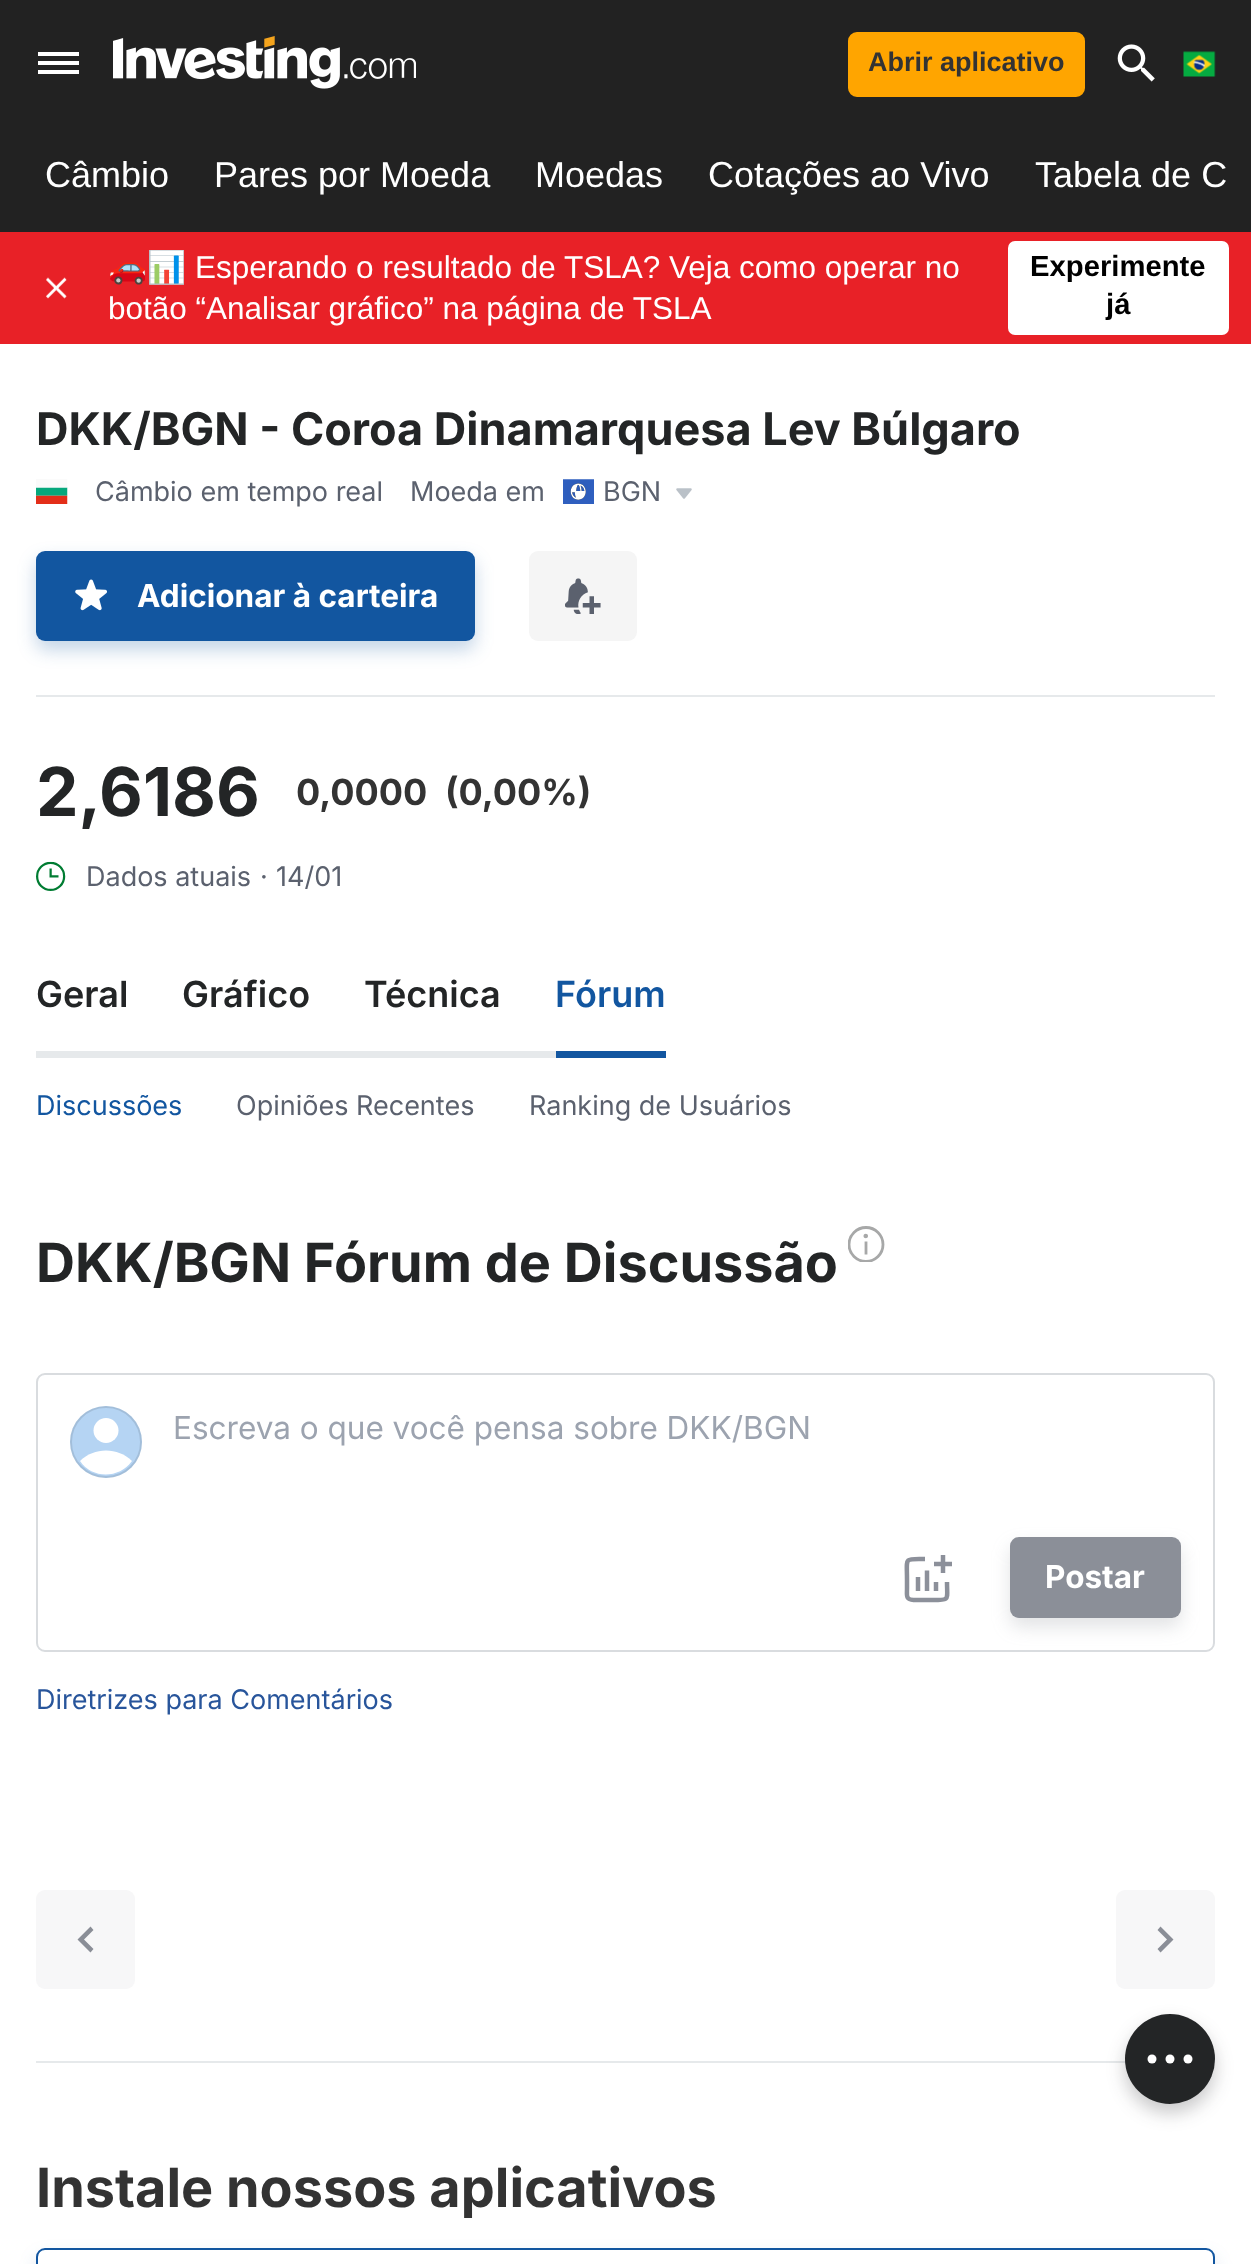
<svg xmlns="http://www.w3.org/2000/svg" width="1251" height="2264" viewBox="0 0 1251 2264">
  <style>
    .t1 { font: bold 27px Liberation Sans; fill: #333; }
    .t2 { font: 36px Liberation Sans; fill: #fff; }
    .t3 { font: 31.5px Noto Color Emoji; fill: #fff; }
    .t4 { font: 31.5px Liberation Sans; fill: #fff; }
    .t5 { font: bold 29.25px Liberation Sans; fill: #000; }
    .t6 { font: bold 45px Inter; fill: #232526; }
    .t7 { font: 27px Inter; fill: #5b616e; }
    .t8 { font: bold 31.5px Inter; fill: #fff; }
    .t9 { font: bold 67.5px Inter; fill: #232526; }
    .t10 { font: bold 36px Inter; fill: #333; }
    .t11 { font: 600 36px Inter; fill: #232526; }
    .t12 { font: 600 36px Inter; fill: #1256a0; }
    .t13 { font: 27px Inter; fill: #1256a0; }
    .t14 { font: bold 54px Inter; fill: #232526; }
    .t15 { font: 31.5px Inter; fill: #9ca3af; }
    .t16 { font: 27px Inter; fill: #28559b; }
    .t17 { font: bold 54px Inter; fill: #333; }
  </style>
  <defs>
    <clipPath id="clip1"><rect x="848" y="1224" width="39" height="38"/></clipPath>
    <clipPath id="clip2"><path d="M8 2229H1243V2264H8ZM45 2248H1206C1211 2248 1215 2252 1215 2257V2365C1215 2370 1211 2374 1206 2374H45C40 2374 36 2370 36 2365V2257C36 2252 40 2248 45 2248Z" clip-rule="evenodd"/></clipPath>
  </defs>
  <rect width="100%" height="100%" fill="#fff"/>
  <rect x="0" y="0" width="1251" height="232" fill="#222"/>
  <path d="M38 74H79V70H38ZM38 65H79V61H38ZM38 52V56H79V52Z" fill="#fff" fill-rule="evenodd"/>
  <image x="113" y="36" width="303" height="53" href="images/1.png"/>
  <rect x="849" y="33" width="235" height="63" rx="8" fill="#ffa500" stroke="#ffa500" stroke-width="2"/>
  <text x="868" y="71" class="t1">Abrir aplicativo</text>
  <image x="1117" y="44" width="38" height="38" href="images/2.png"/>
  <image x="1183" y="51" width="33" height="26" href="images/3.png"/>
  <text x="45" y="187" class="t2">Câmbio</text>
  <text x="214" y="187" class="t2">Pares por Moeda</text>
  <text x="535" y="187" class="t2">Moedas</text>
  <text x="708" y="187" class="t2">Cotações ao Vivo</text>
  <text x="1035" y="187" class="t2">Tabela de C</text>
  <rect x="0" y="232" width="1251" height="112" fill="#e82127"/>
  <image x="46" y="277" width="21" height="22" href="images/4.png"/>
  <text x="108" y="278" class="t3">🚗📊</text>
  <text x="195" y="278" class="t4">Esperando o resultado de TSLA? Veja como operar no</text>
  <text x="108" y="319" class="t4">botão “Analisar gráfico” na página de TSLA</text>
  <rect x="1008" y="241" width="221" height="94" rx="7" fill="#fff"/>
  <text x="1030" y="276" class="t5">Experimente</text>
  <text x="1106" y="314" class="t5">já</text>
  <text x="36" y="445" class="t6">DKK/BGN - Coroa Dinamarquesa Lev Búlgaro</text>
  <image x="36" y="479" width="32" height="25" href="images/5.png"/>
  <text x="95" y="501" class="t7">Câmbio em tempo real</text>
  <text x="410" y="501" class="t7">Moeda em</text>
  <image x="563" y="479" width="31" height="25" href="images/6.png"/>
  <text x="603" y="501" class="t7">BGN</text>
  <image x="676" y="488" width="16" height="11" href="images/7.png"/>
  <rect x="36" y="560" width="439" height="90" rx="9" fill="#1256a040" filter="blur(9px)"/>
  <rect x="36" y="551" width="439" height="90" rx="9" fill="#1256a0"/>
  <image x="75" y="579" width="32" height="32" href="images/8.png"/>
  <text x="137" y="607" class="t8">Adicionar à carteira</text>
  <rect x="529" y="551" width="108" height="90" rx="9" fill="#f5f5f5"/>
  <image x="565" y="578" width="36" height="36" href="images/9.png"/>
  <rect x="36" y="695" width="1179" height="2" fill="#e6e9eb"/>
  <text x="36" y="816" class="t9">2,6186</text>
  <text x="296" y="805" class="t10">0,0000</text>
  <text x="445" y="805" class="t10">(0,00%)</text>
  <image x="36" y="861" width="30" height="30" href="images/10.png"/>
  <text x="86" y="886" class="t7">Dados atuais</text>
  <text x="260" y="886" class="t7">·</text>
  <text x="276" y="886" class="t7">14/01</text>
  <rect x="36" y="1051" width="520" height="7" fill="#e6e9eb"/>
  <text x="36" y="1007" class="t11">Geral</text>
  <text x="182" y="1007" class="t11">Gráfico</text>
  <text x="364" y="1007" class="t11">Técnica</text>
  <rect x="556" y="1051" width="110" height="7" fill="#1256a0"/>
  <text x="555" y="1007" class="t12">Fórum</text>
  <text x="36" y="1115" class="t13">Discussões</text>
  <text x="236" y="1115" class="t7">Opiniões Recentes</text>
  <text x="529" y="1115" class="t7">Ranking de Usuários</text>
  <text x="36" y="1282" class="t14">DKK/BGN Fórum de Discussão</text>
  <g clip-path="url(#clip1)">
    <circle cx="866" cy="1244.5" r="17" fill="none" stroke="#a7a8a8" stroke-width="2.8"/>
  </g>
  <path d="M866 1241.5V1254.5" fill="none" stroke="#a7a8a8" stroke-width="2.8"/>
  <path d="M863.5 1236C863.5 1233 868 1233 868 1236C868 1239 863.5 1239 863.5 1236" fill="#a7a8a8" fill-rule="evenodd"/>
  <rect x="37" y="1374" width="1177" height="277" rx="8" fill="none" stroke="#d9dcdf" stroke-width="2"/>
  <circle cx="106" cy="1442" r="36" fill="#b5d4f3"/>
  <path d="M80 1461C94 1447 118 1447 132 1461C119 1479 92 1479 80 1461" fill="#fff" fill-rule="evenodd"/>
  <circle cx="106" cy="1430.5" r="12.5" fill="#fff"/>
  <circle cx="106" cy="1442" r="35" fill="none" stroke="#0000001a" stroke-width="2"/>
  <text x="173" y="1439" class="t15">Escreva o que você pensa sobre DKK/BGN</text>
  <path d="M934 1564H952M943 1555V1573M925 1559C903.5 1559 907 1557 907 1579.5V1588.5C907 1595.5 905.5 1599.5 913.5 1600H931.5C950.5 1600 947 1600.5 947 1582M927 1591V1570.5M936 1591V1582M918 1591V1577" fill="none" stroke="#8c909a" stroke-width="4.5"/>
  <rect x="1010" y="1546" width="171" height="81" rx="9" fill="#8b8f9840" filter="blur(9px)"/>
  <rect x="1010" y="1537" width="171" height="81" rx="9" fill="#8b8f98"/>
  <text x="1045" y="1588" class="t8">Postar</text>
  <text x="36" y="1709" class="t16">Diretrizes para Comentários</text>
  <rect x="36" y="1890" width="99" height="99" rx="9" fill="#f7f7f8"/>
  <path d="M77.5 1939.5L90.5 1952.5L93.5 1949L84 1939.5L93.5 1930L90.5 1926.5Z" fill="#8a8e97" fill-rule="evenodd"/>
  <rect x="1116" y="1890" width="99" height="99" rx="9" fill="#f7f7f8"/>
  <path d="M1173.5 1939.5L1160.5 1952.5L1157.5 1949L1167 1939.5L1157.5 1930L1160.5 1926.5Z" fill="#8a8e97" fill-rule="evenodd"/>
  <rect x="36" y="2061" width="1179" height="2" fill="#e6e9eb"/>
  <rect x="1125" y="2023" width="90" height="90" rx="45" fill="#23252640" filter="blur(9px)"/>
  <circle cx="1170" cy="2059" r="45" fill="#232526"/>
  <circle cx="1188" cy="2059" r="4.5" fill="#fff"/>
  <circle cx="1152" cy="2059" r="4.5" fill="#fff"/>
  <circle cx="1170" cy="2059" r="4.5" fill="#fff"/>
  <text x="36" y="2207" class="t17">Instale nossos aplicativos</text>
  <g clip-path="url(#clip2)">
    <rect x="36" y="2257" width="1179" height="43" rx="9" fill="#1256a026" filter="blur(9px)"/>
  </g>
  <rect x="37" y="2249" width="1177" height="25" rx="8" fill="none" stroke="#1256a0" stroke-width="2"/>
</svg>
